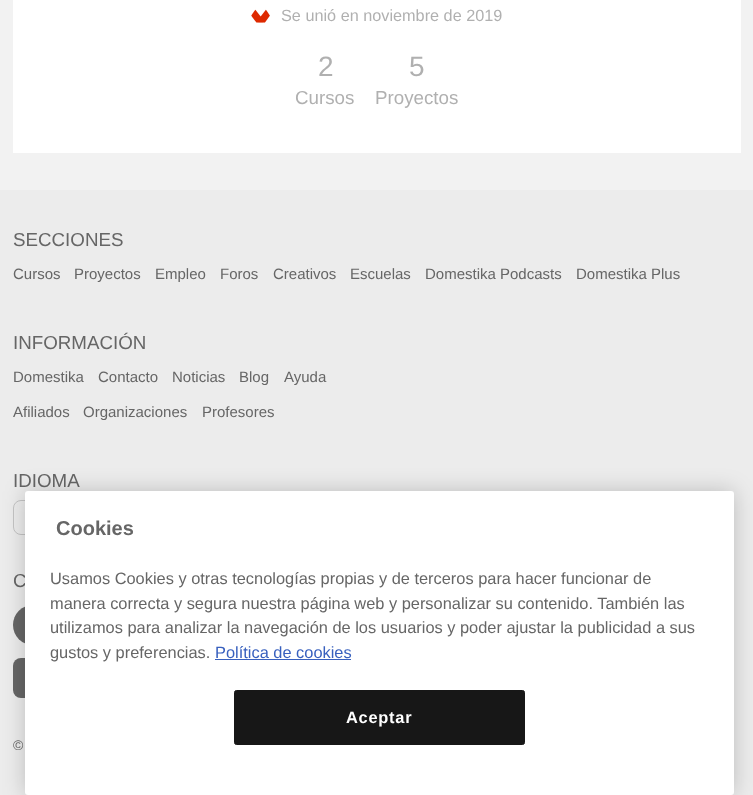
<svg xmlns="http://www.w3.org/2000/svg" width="753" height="795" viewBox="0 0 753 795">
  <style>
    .t1 { font: 16.25px Liberation Sans; fill: #b0b0b0; }
    .t2 { font: 28px Liberation Sans; fill: #b0b0b0; }
    .t3 { font: 18.75px Liberation Sans; fill: #b0b0b0; }
    .t4 { font: 18.75px Liberation Sans; fill: #666; }
    .t5 { font: 15px Liberation Sans; fill: #666; }
    .t6 { font: 14px Liberation Sans; fill: #666; }
    .t7 { font: bold 20px Liberation Sans; fill: #666; }
    .t8 { font: 16.4px Liberation Sans; fill: #666; }
    .t9 { font: 16.4px Liberation Sans; fill: #3860be; }
    .t10 { font: bold 16.4px Liberation Sans; letter-spacing: 0.75px; fill: #fff; }
  </style>
  <rect width="100%" height="100%" fill="#f2f2f2"/>
  <rect x="13" y="0" width="728" height="153" fill="#fff"/>
  <image x="251" y="9" width="19" height="14" href="images/1.png"/>
  <text x="281" y="21" class="t1">Se unió en noviembre de 2019</text>
  <text x="318" y="76" class="t2">2</text>
  <text x="295" y="104" class="t3">Cursos</text>
  <text x="409" y="76" class="t2">5</text>
  <text x="375" y="104" class="t3">Proyectos</text>
  <rect x="0" y="190" width="753" height="605" fill="#ececec"/>
  <text x="13" y="246" class="t4">SECCIONES</text>
  <text x="13" y="279" class="t5">Cursos</text>
  <text x="74" y="279" class="t5">Proyectos</text>
  <text x="155" y="279" class="t5">Empleo</text>
  <text x="220" y="279" class="t5">Foros</text>
  <text x="273" y="279" class="t5">Creativos</text>
  <text x="350" y="279" class="t5">Escuelas</text>
  <text x="425" y="279" class="t5">Domestika Podcasts</text>
  <text x="576" y="279" class="t5">Domestika Plus</text>
  <text x="13" y="349" class="t4">INFORMACIÓN</text>
  <text x="13" y="382" class="t5">Domestika</text>
  <text x="98" y="382" class="t5">Contacto</text>
  <text x="172" y="382" class="t5">Noticias</text>
  <text x="239" y="382" class="t5">Blog</text>
  <text x="284" y="382" class="t5">Ayuda</text>
  <text x="13" y="417" class="t5">Afiliados</text>
  <text x="83" y="417" class="t5">Organizaciones</text>
  <text x="202" y="417" class="t5">Profesores</text>
  <text x="13" y="487" class="t4">IDIOMA</text>
  <rect x="13.5" y="500.5" width="85" height="34" rx="7.5" fill="none" stroke="#c4c4c4"/>
  <text x="13" y="587" class="t4">C</text>
  <circle cx="33" cy="625" r="20" fill="#666"/>
  <rect x="13" y="658" width="231" height="40" rx="8" fill="#666"/>
  <text x="13" y="750" class="t6">©</text>
  <rect x="25" y="491" width="709" height="304" rx="3" fill="#00000033" filter="blur(11px)"/>
  <rect x="25" y="491" width="709" height="304" rx="3" fill="#fff"/>
  <text x="56" y="535" class="t7">Cookies</text>
  <text x="50" y="584" class="t8">Usamos Cookies y otras tecnologías propias y de terceros para hacer funcionar de</text>
  <text x="50" y="609" class="t8">manera correcta y segura nuestra página web y personalizar su contenido. También las</text>
  <text x="50" y="633" class="t8">utilizamos para analizar la navegación de los usuarios y poder ajustar la publicidad a sus</text>
  <text x="50" y="658" class="t8">gustos y preferencias.</text>
  <text x="215" y="658" class="t9">Política de cookies</text>
  <rect x="215" y="659" width="136" height="1" fill="#3860be"/>
  <rect x="234.5" y="690.5" width="290" height="54" rx="2" fill="#171717" stroke="#171717"/>
  <text x="346" y="723" class="t10">Aceptar</text>
</svg>
